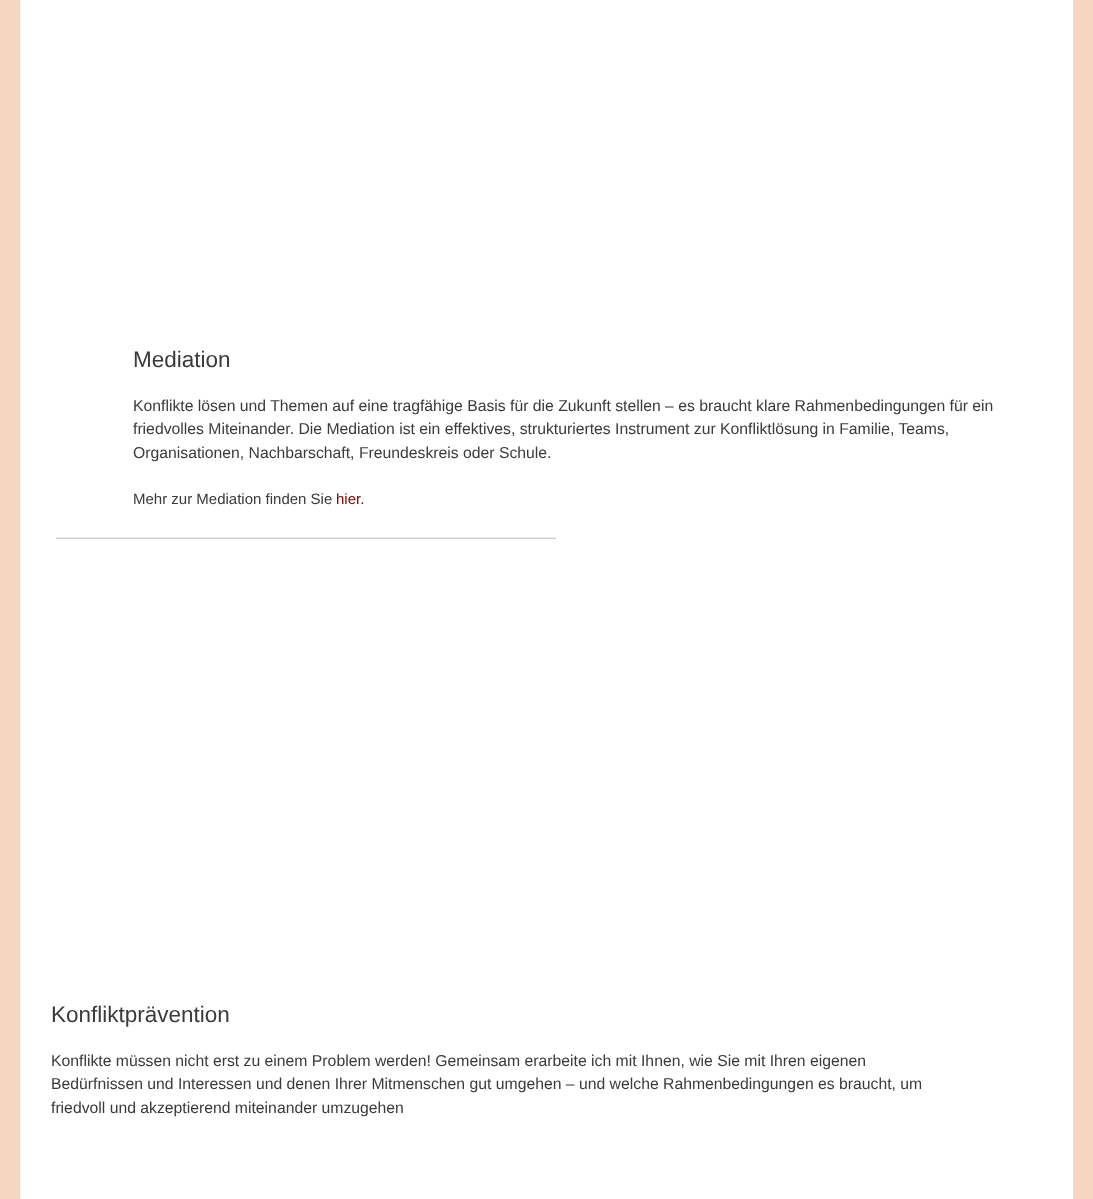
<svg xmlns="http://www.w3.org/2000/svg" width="1093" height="1199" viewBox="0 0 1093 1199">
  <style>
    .t1 { font: 22.5px Liberation Sans; fill: #3a3a3a; }
    .t2 { font: 15.75px Liberation Sans; fill: #3a3a3a; }
    .t3 { font: 15px Liberation Sans; fill: #3a3a3a; }
    .t4 { font: 15px Liberation Sans; fill: #7c0500; }
  </style>
  <rect width="100%" height="100%" fill="#f7d6bf"/>
  <rect x="20" y="0" width="1053" height="1199" fill="#fff"/>
  <text x="133" y="367" class="t1">Mediation</text>
  <text x="133" y="411" class="t2">Konflikte lösen und Themen auf eine tragfähige Basis für die Zukunft stellen – es braucht klare Rahmenbedingungen für ein</text>
  <text x="133" y="434" class="t2">friedvolles Miteinander. Die Mediation ist ein effektives, strukturiertes Instrument zur Konfliktlösung in Familie, Teams,</text>
  <text x="133" y="458" class="t2">Organisationen, Nachbarschaft, Freundeskreis oder Schule.</text>
  <text x="133" y="504" class="t3">Mehr zur Mediation finden Sie</text>
  <text x="336" y="504" class="t4">hier.</text>
  <rect x="56" y="538" width="500" height="1" fill="#ccc"/>
  <rect x="56" y="537" width="500" height="1" fill="#eee"/>
  <text x="51" y="1022" class="t1">Konfliktprävention</text>
  <text x="51" y="1066" class="t2">Konflikte müssen nicht erst zu einem Problem werden! Gemeinsam erarbeite ich mit Ihnen, wie Sie mit Ihren eigenen</text>
  <text x="51" y="1089" class="t2">Bedürfnissen und Interessen und denen Ihrer Mitmenschen gut umgehen – und welche Rahmenbedingungen es braucht, um</text>
  <text x="51" y="1113" class="t2">friedvoll und akzeptierend miteinander umzugehen</text>
</svg>
